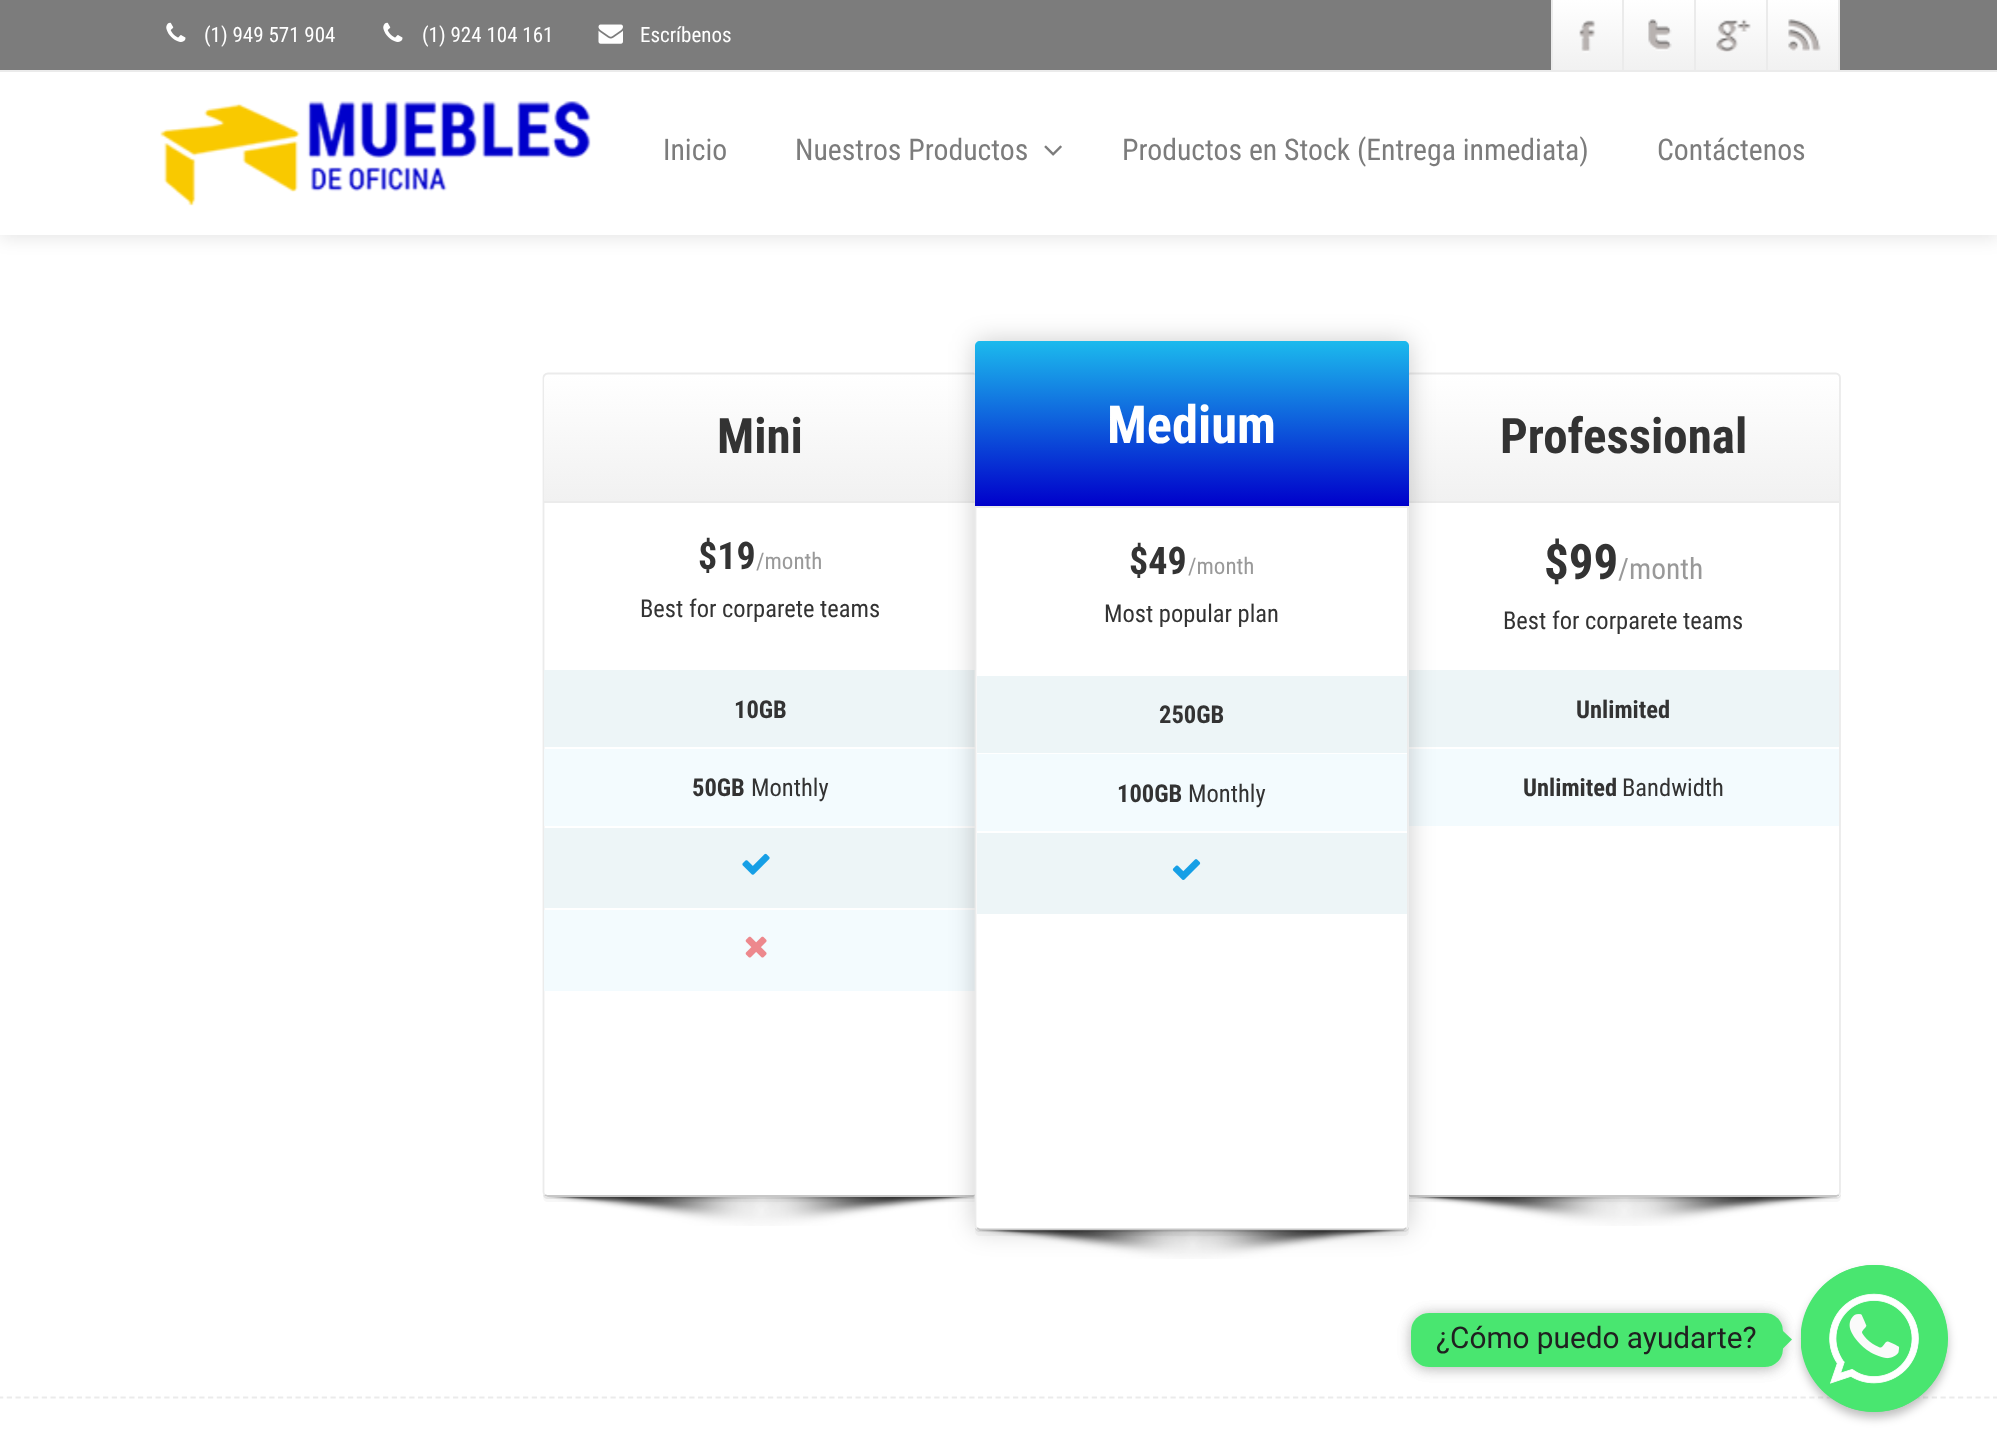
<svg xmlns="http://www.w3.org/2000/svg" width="1997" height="1455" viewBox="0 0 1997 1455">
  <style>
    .t1 { font: 21px Roboto Condensed; fill: #fff; }
    .t2 { font: 29.75px Roboto Condensed; fill: #7c7c7c; }
    .t3 { font: bold 49px Roboto Condensed; fill: #333; }
    .t4 { font: bold 38px Roboto Condensed; fill: #333; }
    .t5 { font: 23px Roboto Condensed; fill: #999; }
    .t6 { font: 24.5px Roboto Condensed; fill: #333; }
    .t7 { font: bold 24.5px Roboto Condensed; fill: #333; }
    .t8 { font: bold 52.5px Roboto Condensed; fill: #fff; }
    .t9 { font: 29.5px Roboto Condensed; fill: #999; }
    .t10 { font: 29.75px Roboto; fill: #202020; }
  </style>
  <defs>
    <linearGradient id="g1" gradientUnits="userSpaceOnUse" x1="1587" y1="0" x2="1587" y2="70"><stop offset="0" stop-color="#fff"/><stop offset="1" stop-color="#f1f1f1"/></linearGradient>
    <linearGradient id="g2" gradientUnits="userSpaceOnUse" x1="1659" y1="0" x2="1659" y2="70"><stop offset="0" stop-color="#fff"/><stop offset="1" stop-color="#f1f1f1"/></linearGradient>
    <linearGradient id="g3" gradientUnits="userSpaceOnUse" x1="1731" y1="0" x2="1731" y2="70"><stop offset="0" stop-color="#fff"/><stop offset="1" stop-color="#f1f1f1"/></linearGradient>
    <linearGradient id="g4" gradientUnits="userSpaceOnUse" x1="1803" y1="0" x2="1803" y2="70"><stop offset="0" stop-color="#fff"/><stop offset="1" stop-color="#f1f1f1"/></linearGradient>
    <linearGradient id="g5" gradientUnits="userSpaceOnUse" x1="760" y1="375" x2="760" y2="501"><stop offset="0" stop-color="#fff"/><stop offset="1" stop-color="#f1f1f1"/></linearGradient>
    <linearGradient id="g6" gradientUnits="userSpaceOnUse" x1="1623" y1="375" x2="1623" y2="501"><stop offset="0" stop-color="#fff"/><stop offset="1" stop-color="#f1f1f1"/></linearGradient>
    <linearGradient id="g7" gradientUnits="userSpaceOnUse" x1="1192" y1="341" x2="1192" y2="506"><stop offset="0" stop-color="#1cbaed"/><stop offset="1" stop-color="#0000cb"/></linearGradient>
    <clipPath id="clip1"><path d="M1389 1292H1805V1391H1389ZM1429 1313H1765C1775 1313 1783 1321 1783 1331V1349C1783 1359 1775 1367 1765 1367H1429C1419 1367 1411 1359 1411 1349V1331C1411 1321 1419 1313 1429 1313Z" clip-rule="evenodd"/></clipPath>
  </defs>
  <rect width="100%" height="100%" fill="#fff"/>
  <rect x="0" y="75" width="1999" height="163" fill="#0000001a" filter="blur(9px)"/>
  <rect x="0" y="70" width="1997" height="2" fill="#ebebeb"/>
  <rect x="0" y="0" width="1997" height="70" fill="#7c7c7c"/>
  <image x="166" y="22" width="20" height="20" href="images/1.png"/>
  <text x="204" y="42" class="t1">(1) 949 571 904</text>
  <image x="383" y="22" width="20" height="20" href="images/1.png"/>
  <text x="422" y="42" class="t1">(1) 924 104 161</text>
  <image x="598" y="24" width="25" height="20" href="images/2.png"/>
  <text x="640" y="42" class="t1">Escríbenos</text>
  <rect x="1553" y="0" width="69" height="70" fill="url(#g1)"/>
  <rect x="1551" y="0" width="2" height="70" fill="#ebebeb"/>
  <image x="1579" y="20" width="17" height="33" href="images/3.png"/>
  <rect x="1624" y="0" width="70" height="70" fill="url(#g2)"/>
  <rect x="1622" y="0" width="2" height="70" fill="#ebebeb"/>
  <image x="1648" y="19" width="24" height="32" href="images/4.png"/>
  <rect x="1696" y="0" width="70" height="70" fill="url(#g3)"/>
  <rect x="1694" y="0" width="2" height="70" fill="#ebebeb"/>
  <image x="1716" y="19" width="35" height="33" href="images/5.png"/>
  <rect x="1768" y="0" width="70" height="70" fill="url(#g4)"/>
  <rect x="1838" y="0" width="2" height="70" fill="#ebebeb"/>
  <rect x="1766" y="0" width="2" height="70" fill="#ebebeb"/>
  <image x="1788" y="19" width="33" height="32" href="images/6.png"/>
  <rect x="0" y="72" width="1997" height="163" fill="#fff"/>
  <image x="160" y="101" width="431" height="105" href="images/7.png"/>
  <text x="663" y="160" class="t2">Inicio</text>
  <text x="795" y="160" class="t2">Nuestros Productos</text>
  <image x="1044" y="145" width="18" height="11" href="images/8.png"/>
  <text x="1122" y="160" class="t2">Productos en Stock (Entrega inmediata)</text>
  <text x="1657" y="160" class="t2">Contáctenos</text>
  <image x="549" y="1197" width="425" height="29" href="images/11.png"/>
  <path d="M543 1194C543 1197 545 1199 548 1199H973C976 1199 978 1196 978 1193C977 1195 975 1197 973 1197H548C546 1197 544 1196 543 1194Z" fill="#00000012"/>
  <path d="M543 1194V1197C543 1200 545 1202 548 1202H973C976 1202 978 1200 978 1197V1193C977 1195 975 1197 973 1197H548C546 1197 544 1196 543 1194Z" fill="#00000008"/>
  <rect x="543" y="373" width="435" height="824" rx="5" fill="#fff"/>
  <path d="M976 1195L973 1196H548L544.5 1195" fill="none" stroke="#00000038" stroke-width="1.8"/>
  <path d="M544.5 1195C544 1194 543.5 1193 543.5 1192V378C543.5 377 544 375.5 544.5 375C545.5 374 546.5 373.5 548 373.5H973C974 373.5 975.5 374 976 375C977 375.5 977.5 377 977.5 378V1192C977.5 1193 977 1194 976 1195" fill="none" stroke="#ebebeb" stroke-width="1.8"/>
  <path d="M549 375H972C975 375 977 377 977 380V501H544V380C544 377 546 375 549 375Z" fill="url(#g5)"/>
  <rect x="544" y="501" width="433" height="2" fill="#ebebeb"/>
  <text x="717" y="453" class="t3">Mini</text>
  <text x="698" y="569" class="t4">$19</text>
  <text x="756" y="569" class="t5">/month</text>
  <text x="640" y="617" class="t6">Best for corparete teams</text>
  <rect x="544" y="670" width="431" height="77" fill="#edf5f7"/>
  <text x="734" y="718" class="t7">10GB</text>
  <rect x="544" y="749" width="431" height="77" fill="#f3fbfe"/>
  <text x="692" y="796" class="t7">50GB</text>
  <text x="751" y="796" class="t6">Monthly</text>
  <rect x="544" y="828" width="431" height="80" fill="#edf5f7"/>
  <image x="742" y="853" width="28" height="22" href="images/9.png"/>
  <rect x="544" y="910" width="431" height="81" fill="#f3fbfe"/>
  <image x="745" y="936" width="22" height="22" href="images/10.png"/>
  <image x="982" y="1230" width="422" height="29" href="images/13.png"/>
  <image x="1411" y="1197" width="426" height="29" href="images/14.png"/>
  <path d="M1405 378V1194C1405 1197 1407 1199 1410 1199H1836C1839 1199 1841 1197 1841 1194V1192C1841 1195 1839 1197 1836 1197H1410C1408 1197 1405 1195 1405 1192Z" fill="#00000012"/>
  <path d="M1405 381V1197C1405 1200 1407 1202 1410 1202H1836C1839 1202 1841 1200 1841 1197V1192C1841 1195 1839 1197 1836 1197H1410C1408 1197 1405 1195 1405 1192Z" fill="#00000008"/>
  <rect x="1405" y="373" width="436" height="824" rx="5" fill="#fff"/>
  <path d="M1839 1195L1836 1196H1410.5L1407.5 1195" fill="none" stroke="#c7c7c7" stroke-width="1.8"/>
  <path d="M1407.5 1195C1406.5 1194 1406 1193 1406 1192V378C1406 377 1406.5 375.5 1407.5 375C1408 374 1409.5 373.5 1410.5 373.5H1836C1837 373.5 1838 374 1839 375C1839.5 375.5 1840 377 1840 378V1192C1840 1193 1839.5 1194 1839 1195" fill="none" stroke="#ebebeb" stroke-width="1.8"/>
  <path d="M1412 375H1834C1837 375 1839 377 1839 380V501H1407V380C1407 377 1409 375 1412 375Z" fill="url(#g6)"/>
  <rect x="1407" y="501" width="432" height="2" fill="#ebebeb"/>
  <rect x="1409" y="670" width="430" height="77" fill="#edf5f7"/>
  <rect x="1409" y="749" width="430" height="77" fill="#f3fbfe"/>
  <rect x="975" y="341" width="434" height="889" rx="5" fill="#00000033" filter="blur(13px)"/>
  <path d="M975 1227C975 1230 977 1232 980 1232H1404C1407 1232 1409 1230 1409 1227V346V1225C1409 1228 1406 1230 1404 1230H980C978 1230 976 1229 975 1227Z" fill="#00000012"/>
  <path d="M975 1227V1231C975 1234 977 1236 980 1236H1404C1407 1236 1409 1234 1409 1231V350V1225C1409 1228 1406 1230 1404 1230H980C978 1230 976 1229 975 1227Z" fill="#00000008"/>
  <rect x="975" y="341" width="434" height="889" rx="5" fill="#fff"/>
  <path d="M1406.5 1228L1403.5 1229.5H980L977 1228" fill="none" stroke="#00000038" stroke-width="1.8"/>
  <path d="M977 1228C976 1227.5 975.5 1226 975.5 1225V346.5C975.5 345.5 976 344 977 343.5C977.5 342.5 979 342 980 342H1403.5C1404.5 342 1406 342.5 1406.5 343.5C1407.5 344 1408 345.5 1408 346.5V1225C1408 1226 1407.5 1227.5 1406.5 1228" fill="none" stroke="#ebebeb" stroke-width="1.8"/>
  <path d="M980 341H1404C1407 341 1409 343 1409 346V506H975V346C975 343 977 341 980 341Z" fill="url(#g7)"/>
  <rect x="975" y="506" width="434" height="2" fill="#ebebeb"/>
  <text x="1107" y="443" class="t8">Medium</text>
  <text x="1129" y="574" class="t4">$49</text>
  <text x="1188" y="574" class="t5">/month</text>
  <text x="1104" y="622" class="t6">Most popular plan</text>
  <rect x="977" y="676" width="430" height="77" fill="#edf5f7"/>
  <text x="1159" y="723" class="t7">250GB</text>
  <rect x="977" y="754" width="430" height="77" fill="#f3fbfe"/>
  <text x="1117" y="802" class="t7">100GB</text>
  <text x="1188" y="802" class="t6">Monthly</text>
  <rect x="977" y="833" width="430" height="81" fill="#edf5f7"/>
  <image x="1172" y="859" width="29" height="21" href="images/12.png"/>
  <text x="1500" y="453" class="t3">Professional</text>
  <text x="1544" y="579" class="t3">$99</text>
  <text x="1618" y="579" class="t9">/month</text>
  <text x="1503" y="629" class="t6">Best for corparete teams</text>
  <text x="1576" y="718" class="t7">Unlimited</text>
  <text x="1523" y="796" class="t7">Unlimited</text>
  <text x="1622" y="796" class="t6">Bandwidth</text>
  <path d="M-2 1397.5H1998.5" fill="none" stroke="#ebebeb" stroke-width="1.8" stroke-dasharray="5.25 3.5"/>
  <rect x="1801" y="1271" width="147" height="147" rx="73.5" fill="#00000040" filter="blur(5px)"/>
  <circle cx="1874.5" cy="1338.5" r="73.5" fill="#49e670"/>
  <image x="1801" y="1265" width="147" height="147" href="images/15.png"/>
  <g clip-path="url(#clip1)">
    <rect x="1411" y="1314" width="372" height="55" rx="18" fill="#00000026" filter="blur(7px)"/>
    <rect x="1411" y="1314" width="372" height="55" rx="18" fill="#00000026" filter="blur(7px)"/>
  </g>
  <rect x="1411" y="1313" width="372" height="54" rx="18" fill="#49e670"/>
  <text x="1436" y="1348" class="t10">¿Cómo puedo ayudarte?</text>
  <path d="M1783 1348.5V1331L1792 1339.5Z" fill="#49e670"/>
</svg>
